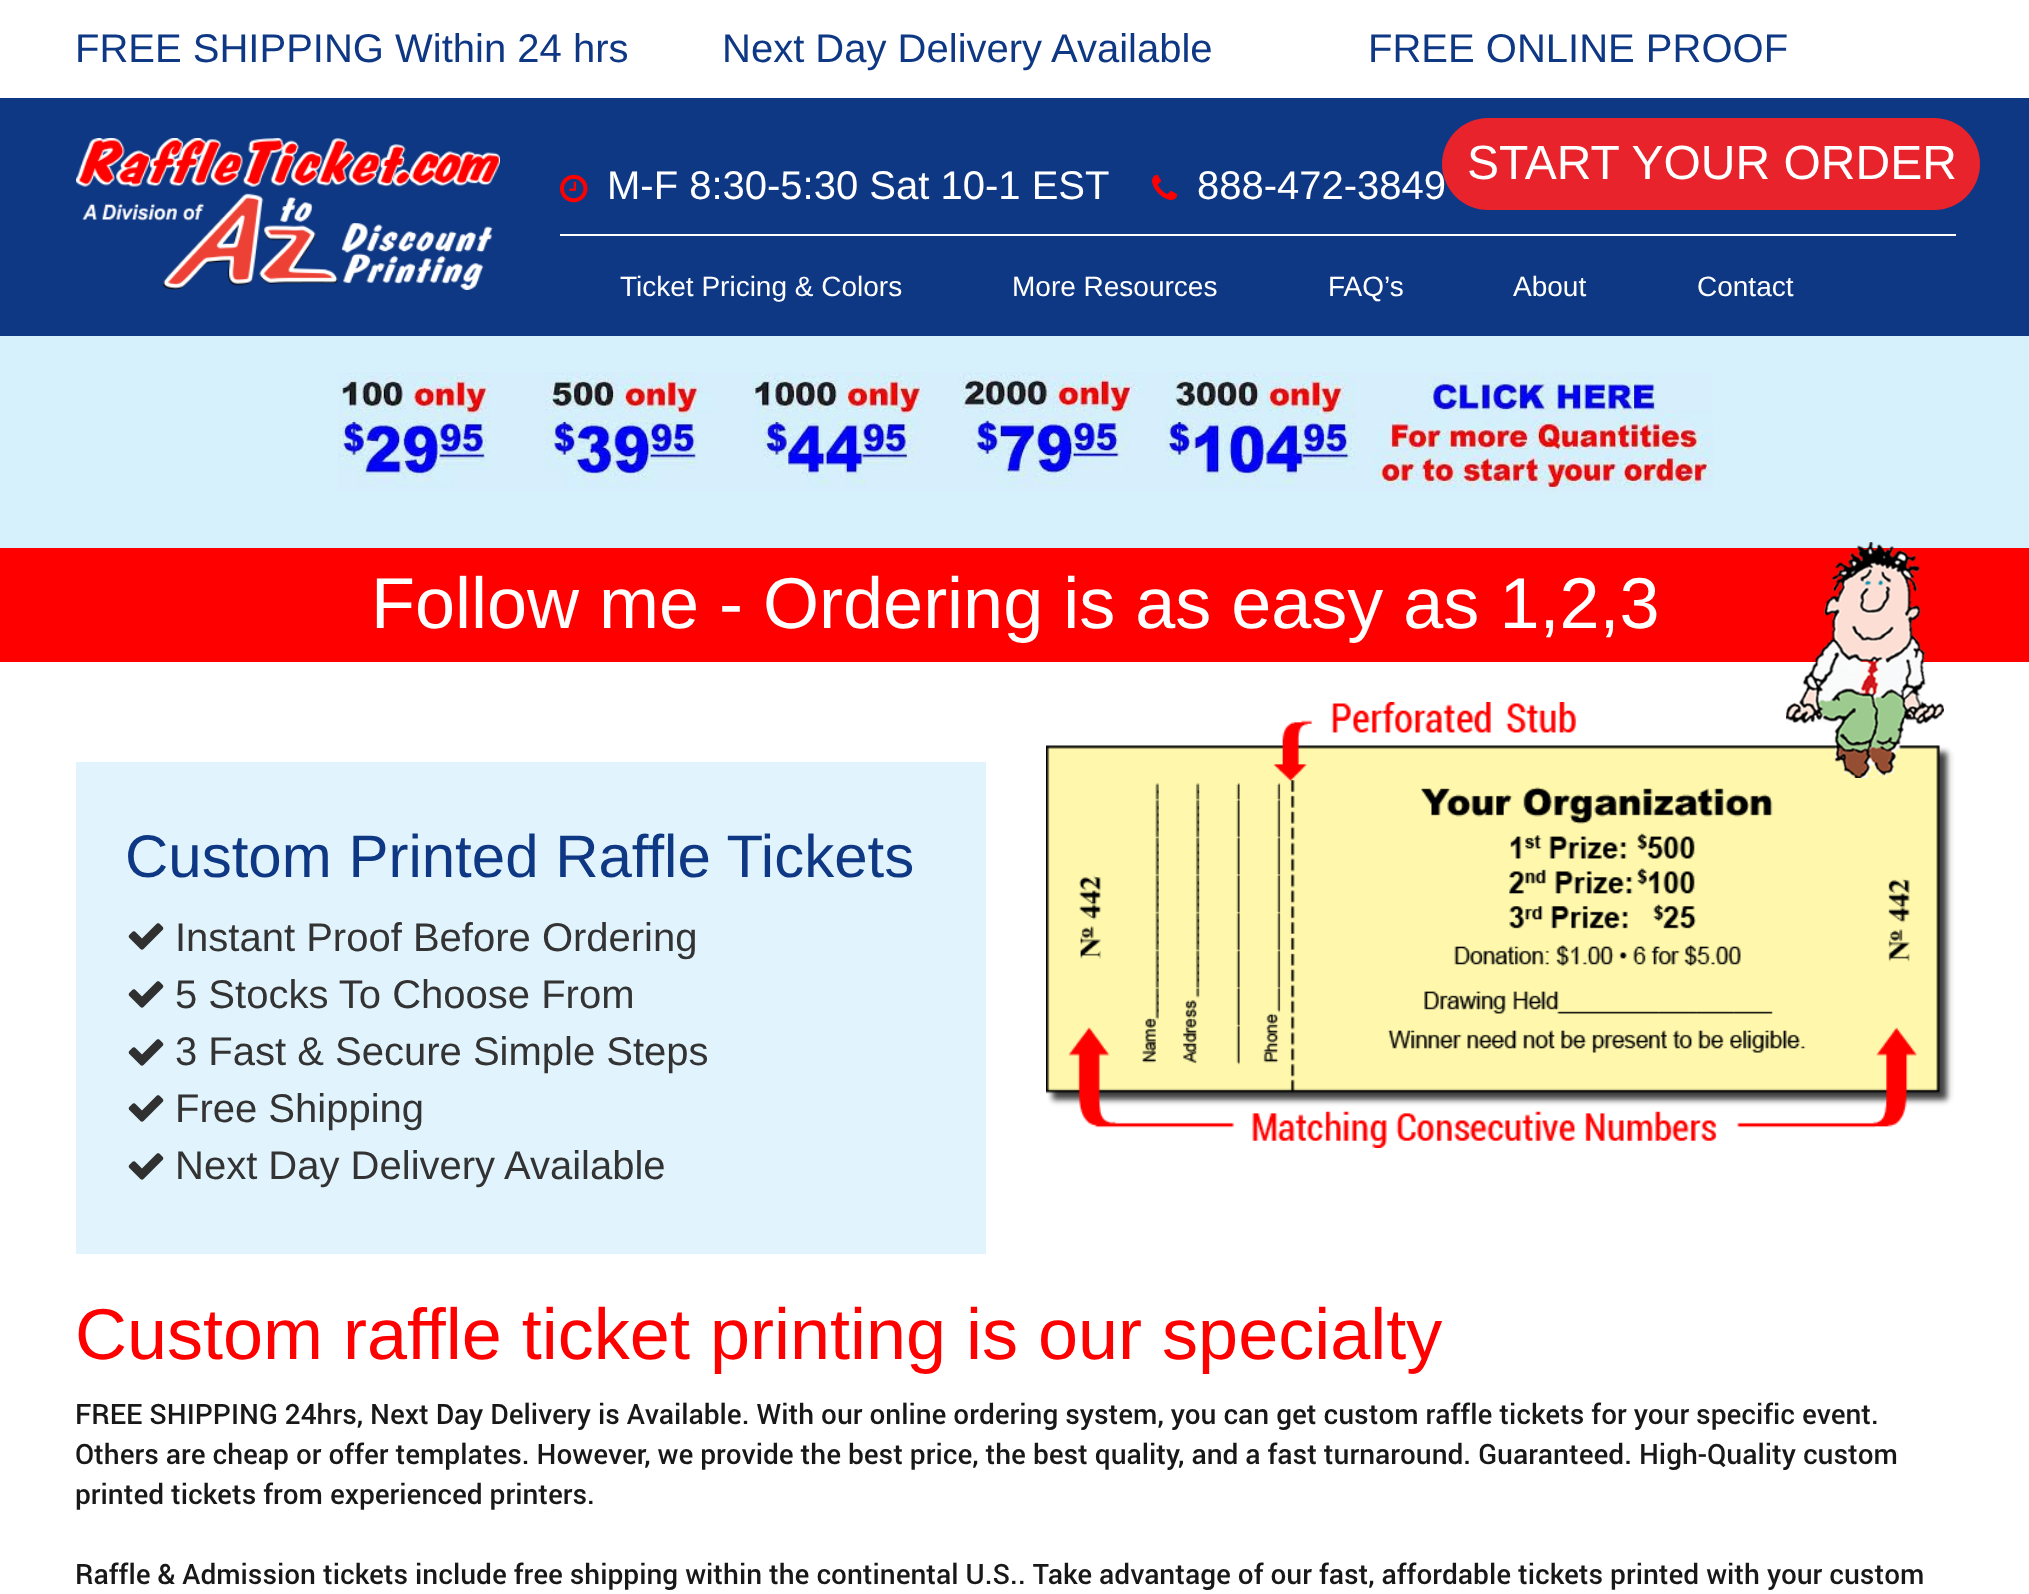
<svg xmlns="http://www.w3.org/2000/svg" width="2029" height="1594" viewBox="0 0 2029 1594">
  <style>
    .t1 { font: 40px Liberation Sans; fill: #0f3884; }
    .t2 { font: 40px Liberation Sans; fill: #fff; }
    .t3 { font: 48px Liberation Sans; fill: #fff; }
    .t4 { font: 28px Liberation Sans; fill: #fff; }
    .t5 { font: 72px Liberation Sans; fill: #fff; }
    .t6 { font: 60px Liberation Sans; fill: #0f3884; }
    .t7 { font: 40px Liberation Sans; fill: #333; }
    .t8 { font: 72px Liberation Sans; fill: #f00; }
    .t9 { font: 500 28px Roboto; fill: #191818; }
  </style>
  <rect width="100%" height="100%" fill="#fff"/>
  <text x="75" y="62" class="t1">FREE SHIPPING Within 24 hrs</text>
  <text x="722" y="62" class="t1">Next Day Delivery Available</text>
  <text x="1368" y="62" class="t1">FREE ONLINE PROOF</text>
  <rect x="0" y="98" width="2029" height="238" fill="#0f3884"/>
  <image x="76" y="138" width="424" height="152" href="images/1.png"/>
  <rect x="560" y="234" width="1396" height="2" fill="#fff"/>
  <text x="1197" y="199" class="t2">888-472-3849</text>
  <rect x="1442" y="118" width="538" height="92" rx="46" fill="#e9232b"/>
  <text x="1467" y="179" class="t3">START YOUR ORDER</text>
  <image x="560" y="174" width="28" height="29" href="images/2.png"/>
  <text x="607" y="199" class="t2">M-F 8:30-5:30 Sat 10-1 EST</text>
  <image x="1152" y="174" width="26" height="26" href="images/3.png"/>
  <text x="620" y="296" class="t4">Ticket Pricing &amp; Colors</text>
  <text x="1012" y="296" class="t4">More Resources</text>
  <text x="1328" y="296" class="t4">FAQ’s</text>
  <text x="1513" y="296" class="t4">About</text>
  <text x="1697" y="296" class="t4">Contact</text>
  <rect x="0" y="336" width="2029" height="212" fill="#d6f1fc"/>
  <image x="338" y="372" width="1375" height="120" href="images/4.png"/>
  <rect x="0" y="548" width="2029" height="114" fill="#f00"/>
  <text x="371" y="628" class="t5">Follow me - Ordering is as easy as 1,2,3</text>
  <rect x="76" y="762" width="910" height="492" fill="#e1f4fd"/>
  <text x="125" y="877" class="t6">Custom Printed Raffle Tickets</text>
  <image x="128" y="923" width="36" height="27" href="images/5.png"/>
  <text x="175" y="951" class="t7">Instant Proof Before Ordering</text>
  <image x="128" y="981" width="36" height="27" href="images/5.png"/>
  <text x="175" y="1008" class="t7">5 Stocks To Choose From</text>
  <image x="128" y="1039" width="36" height="27" href="images/5.png"/>
  <text x="175" y="1065" class="t7">3 Fast &amp; Secure Simple Steps</text>
  <image x="128" y="1095" width="36" height="27" href="images/5.png"/>
  <text x="175" y="1122" class="t7">Free Shipping</text>
  <image x="128" y="1153" width="36" height="27" href="images/5.png"/>
  <text x="175" y="1179" class="t7">Next Day Delivery Available</text>
  <image x="1046" y="702" width="908" height="446" href="images/7.png"/>
  <image x="1786" y="542" width="158" height="236" href="images/6.png"/>
  <text x="75" y="1359" class="t8">Custom raffle ticket printing is our specialty</text>
  <text x="75" y="1424" class="t9">FREE SHIPPING 24hrs, Next Day Delivery is Available. With our online ordering system, you can get custom raffle tickets for your specific event.</text>
  <text x="75" y="1464" class="t9">Others are cheap or offer templates. However, we provide the best price, the best quality, and a fast turnaround. Guaranteed. High-Quality custom</text>
  <text x="75" y="1504" class="t9">printed tickets from experienced printers.</text>
  <text x="75" y="1584" class="t9">Raffle &amp; Admission tickets include free shipping within the continental U.S.. Take advantage of our fast, affordable tickets printed with your custom</text>
</svg>
